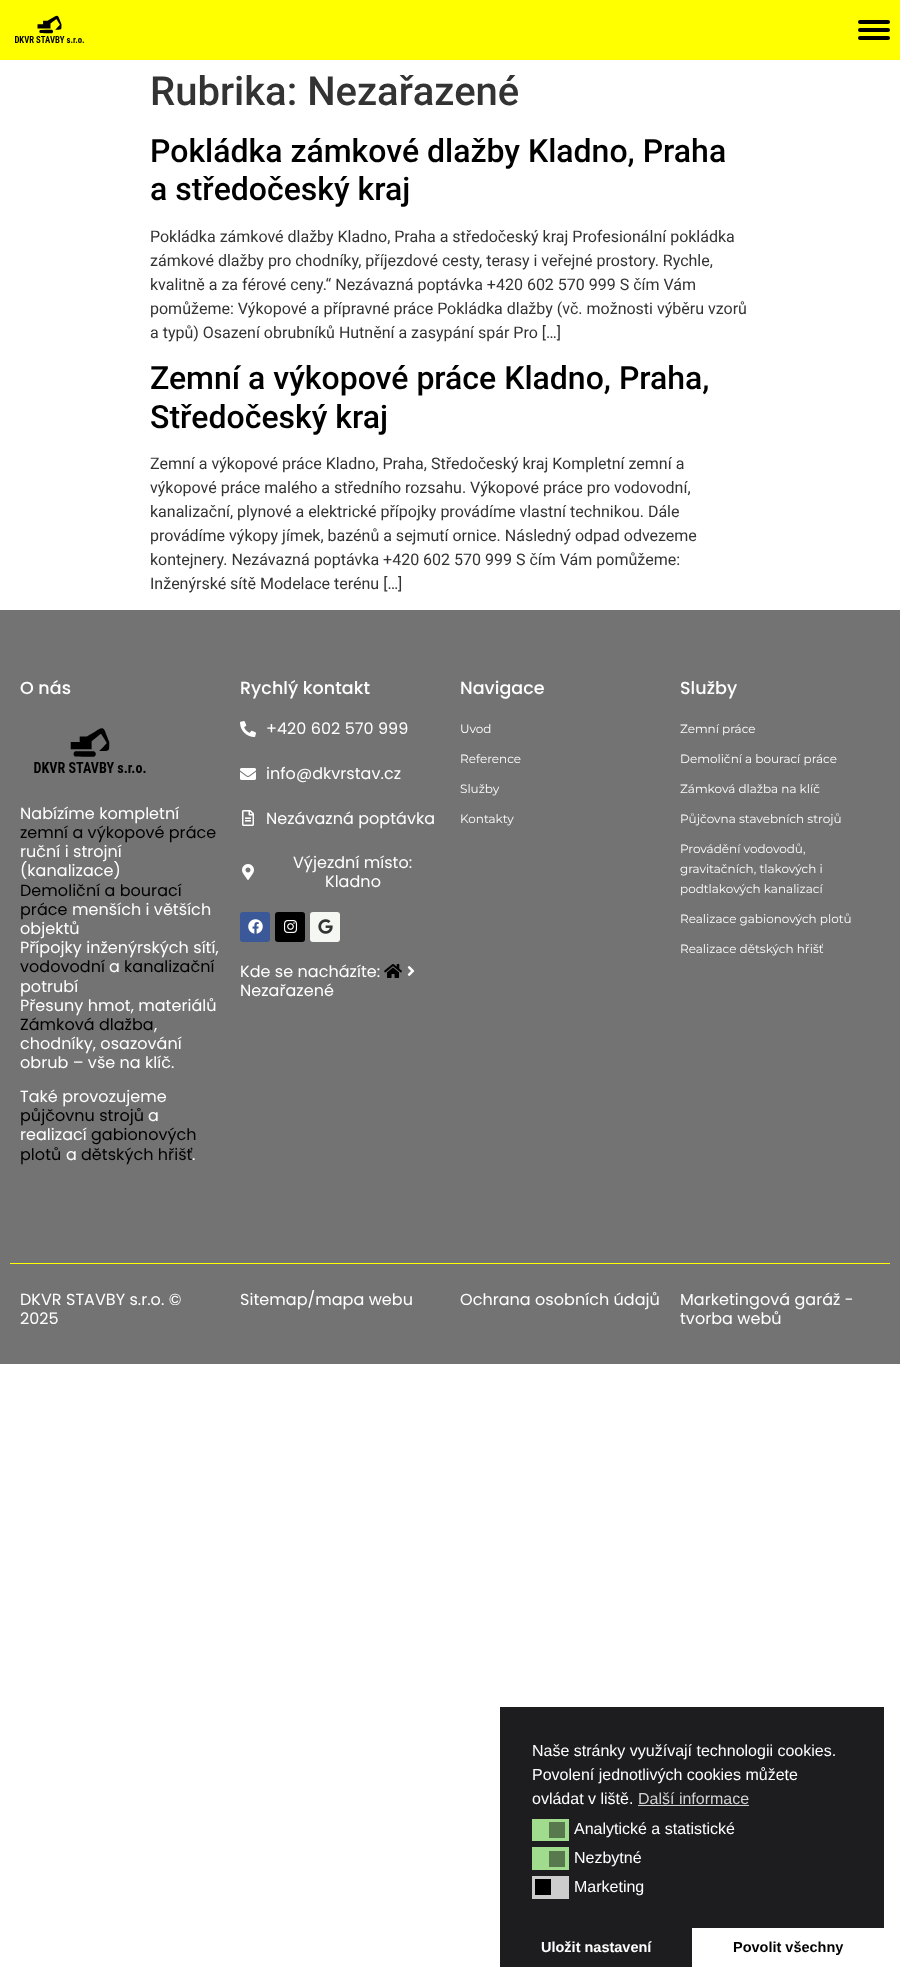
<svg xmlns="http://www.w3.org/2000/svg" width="900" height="1983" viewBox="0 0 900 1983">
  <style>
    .t1 { font: 500 40px Roboto; fill: #333; }
    .t2 { font: 500 32px Roboto; fill: #000; }
    .t3 { font: 16px Roboto; fill: #333; }
    .t4 { font: 500 17.5px Poppins; letter-spacing: 0.05px; fill: #fff; }
    .t5 { font: 16px Poppins; letter-spacing: 0.05px; fill: #fff; }
    .t6 { font: 16px Poppins; letter-spacing: 0.05px; fill: #000; }
    .t7 { font: 12px Montserrat; fill: #fff; }
    .t8 { font: 16px Liberation Sans; fill: #fff; }
    .t9 { font: 16px Liberation Sans; fill: #d2d2d2; }
    .t10 { font: bold 14.5px Liberation Sans; fill: #fff; }
    .t11 { font: bold 14.5px Liberation Sans; fill: #000; }
  </style>
  <rect width="100%" height="100%" fill="#fff"/>
  <rect x="0" y="0" width="900" height="60" fill="#ff0"/>
  <image x="15" y="15" width="69" height="28" href="images/1.png"/>
  <rect x="858" y="20" width="32" height="4" rx="2" fill="#000"/>
  <rect x="858" y="28" width="32" height="4" rx="2" fill="#000"/>
  <rect x="858" y="36" width="32" height="4" rx="2" fill="#000"/>
  <text x="150" y="105" class="t1">Rubrika: Nezařazené</text>
  <text x="150" y="162" class="t2">Pokládka zámkové dlažby Kladno, Praha</text>
  <text x="150" y="200" class="t2">a středočeský kraj</text>
  <text x="150" y="242" class="t3">Pokládka zámkové dlažby Kladno, Praha a středočeský kraj Profesionální pokládka</text>
  <text x="150" y="266" class="t3">zámkové dlažby pro chodníky, příjezdové cesty, terasy i veřejné prostory. Rychle,</text>
  <text x="150" y="290" class="t3">kvalitně a za férové ceny.“ Nezávazná poptávka +420 602 570 999 S čím Vám</text>
  <text x="150" y="314" class="t3">pomůžeme: Výkopové a přípravné práce Pokládka dlažby (vč. možnosti výběru vzorů</text>
  <text x="150" y="338" class="t3">a typů) Osazení obrubníků Hutnění a zasypání spár Pro […]</text>
  <text x="150" y="389" class="t2">Zemní a výkopové práce Kladno, Praha,</text>
  <text x="150" y="428" class="t2">Středočeský kraj</text>
  <text x="150" y="469" class="t3">Zemní a výkopové práce Kladno, Praha, Středočeský kraj Kompletní zemní a</text>
  <text x="150" y="493" class="t3">výkopové práce malého a středního rozsahu. Výkopové práce pro vodovodní,</text>
  <text x="150" y="517" class="t3">kanalizační, plynové a elektrické přípojky provádíme vlastní technikou. Dále</text>
  <text x="150" y="541" class="t3">provádíme výkopy jímek, bazénů a sejmutí ornice. Následný odpad odvezeme</text>
  <text x="150" y="565" class="t3">kontejnery. Nezávazná poptávka +420 602 570 999 S čím Vám pomůžeme:</text>
  <text x="150" y="589" class="t3">Inženýrské sítě Modelace terénu […]</text>
  <rect x="0" y="610" width="900" height="754" fill="#737373"/>
  <text x="20" y="694" class="t4">O nás</text>
  <image x="34" y="728" width="112" height="45" href="images/2.png"/>
  <text x="20" y="819" class="t5">Nabízíme kompletní</text>
  <text x="20" y="838" class="t6">zemní a výkopové práce</text>
  <text x="20" y="857" class="t5">ruční i strojní</text>
  <text x="20" y="876" class="t5">(kanalizace)</text>
  <text x="20" y="896" class="t6">Demoliční a bourací</text>
  <text x="20" y="915" class="t6">práce</text>
  <text x="72" y="915" class="t5">menších i větších</text>
  <text x="20" y="934" class="t5">objektů</text>
  <text x="20" y="953" class="t5">Přípojky inženýrských sítí,</text>
  <text x="20" y="972" class="t6">vodovodní</text>
  <text x="109" y="972" class="t5">a</text>
  <text x="124" y="972" class="t6">kanalizační</text>
  <text x="20" y="992" class="t5">potrubí</text>
  <text x="20" y="1011" class="t5">Přesuny hmot, materiálů</text>
  <text x="20" y="1030" class="t6">Zámková dlažba</text>
  <text x="154" y="1030" class="t5">,</text>
  <text x="20" y="1049" class="t5">chodníky, osazování</text>
  <text x="20" y="1068" class="t5">obrub – vše na klíč.</text>
  <text x="20" y="1102" class="t5">Také provozujeme</text>
  <text x="20" y="1121" class="t6">půjčovnu strojů</text>
  <text x="148" y="1121" class="t5">a</text>
  <text x="20" y="1140" class="t5">realizací</text>
  <text x="91" y="1140" class="t6">gabionových</text>
  <text x="20" y="1160" class="t6">plotů</text>
  <text x="66" y="1160" class="t5">a</text>
  <text x="81" y="1160" class="t6">dětských hřišť</text>
  <text x="192" y="1160" class="t5">.</text>
  <text x="240" y="694" class="t4">Rychlý kontakt</text>
  <image x="240" y="721" width="16" height="16" href="images/3.png"/>
  <text x="266" y="734" class="t5">+420 602 570 999</text>
  <image x="240" y="768" width="16" height="12" href="images/4.png"/>
  <text x="266" y="779" class="t5">info@dkvrstav.cz</text>
  <image x="242" y="810" width="12" height="16" href="images/5.png"/>
  <text x="266" y="824" class="t5">Nezávazná poptávka</text>
  <image x="242" y="864" width="12" height="16" href="images/6.png"/>
  <text x="293" y="868" class="t5">Výjezdní místo:</text>
  <text x="325" y="887" class="t5">Kladno</text>
  <rect x="240" y="912" width="30" height="30" rx="3" fill="#3b5998"/>
  <image x="248" y="919" width="15" height="15" href="images/7.png"/>
  <rect x="275" y="912" width="30" height="30" rx="3" fill="#000"/>
  <image x="284" y="920" width="14" height="13" href="images/8.png"/>
  <rect x="310" y="912" width="30" height="30" rx="3" fill="#f5f7f2"/>
  <image x="318" y="919" width="15" height="15" href="images/9.png"/>
  <text x="240" y="977" class="t5">Kde se nacházíte:</text>
  <image x="384" y="964" width="18" height="14" href="images/10.png"/>
  <image x="407" y="966" width="8" height="10" href="images/11.png"/>
  <text x="240" y="996" class="t5">Nezařazené</text>
  <text x="460" y="694" class="t4">Navigace</text>
  <text x="460" y="733" class="t7">Uvod</text>
  <text x="460" y="763" class="t7">Reference</text>
  <text x="460" y="793" class="t7">Služby</text>
  <text x="460" y="823" class="t7">Kontakty</text>
  <text x="680" y="694" class="t4">Služby</text>
  <text x="680" y="733" class="t7">Zemní práce</text>
  <text x="680" y="763" class="t7">Demoliční a bourací práce</text>
  <text x="680" y="793" class="t7">Zámková dlažba na klíč</text>
  <text x="680" y="823" class="t7">Půjčovna stavebních strojů</text>
  <text x="680" y="853" class="t7">Provádění vodovodů,</text>
  <text x="680" y="873" class="t7">gravitačních, tlakových i</text>
  <text x="680" y="893" class="t7">podtlakových kanalizací</text>
  <text x="680" y="923" class="t7">Realizace gabionových plotů</text>
  <text x="680" y="953" class="t7">Realizace dětských hřišť</text>
  <rect x="10" y="1263" width="880" height="1" fill="#ff0"/>
  <text x="20" y="1305" class="t5">DKVR STAVBY s.r.o. ©</text>
  <text x="20" y="1324" class="t5">2025</text>
  <text x="240" y="1305" class="t5">Sitemap/mapa webu</text>
  <text x="460" y="1305" class="t5">Ochrana osobních údajů</text>
  <text x="680" y="1305" class="t5">Marketingová garáž -</text>
  <text x="680" y="1324" class="t5">tvorba webů</text>
  <rect x="500" y="1707" width="384" height="260" fill="#1d1d1f"/>
  <text x="532" y="1756" class="t8">Naše stránky využívají technologii cookies.</text>
  <text x="532" y="1780" class="t8">Povolení jednotlivých cookies můžete</text>
  <text x="532" y="1804" class="t8">ovládat v liště.</text>
  <text x="638" y="1804" class="t9">Další informace</text>
  <rect x="638" y="1805" width="111" height="1" fill="#d2d2d2"/>
  <rect x="532" y="1819" width="37" height="22" fill="#a0db8e"/>
  <rect x="549" y="1822" width="16" height="16" fill="#58784e"/>
  <text x="574" y="1834" class="t8">Analytické a statistické</text>
  <rect x="532" y="1847" width="37" height="23" fill="#a0db8e"/>
  <rect x="549" y="1851" width="16" height="16" fill="#58784e"/>
  <text x="574" y="1863" class="t8">Nezbytné</text>
  <rect x="532" y="1876" width="37" height="23" fill="#ccc"/>
  <rect x="535" y="1879" width="16" height="16" fill="#000"/>
  <text x="574" y="1892" class="t8">Marketing</text>
  <text x="541" y="1952" class="t10">Uložit nastavení</text>
  <rect x="692" y="1928" width="192" height="39" fill="#fff"/>
  <text x="733" y="1952" class="t11">Povolit všechny</text>
</svg>
